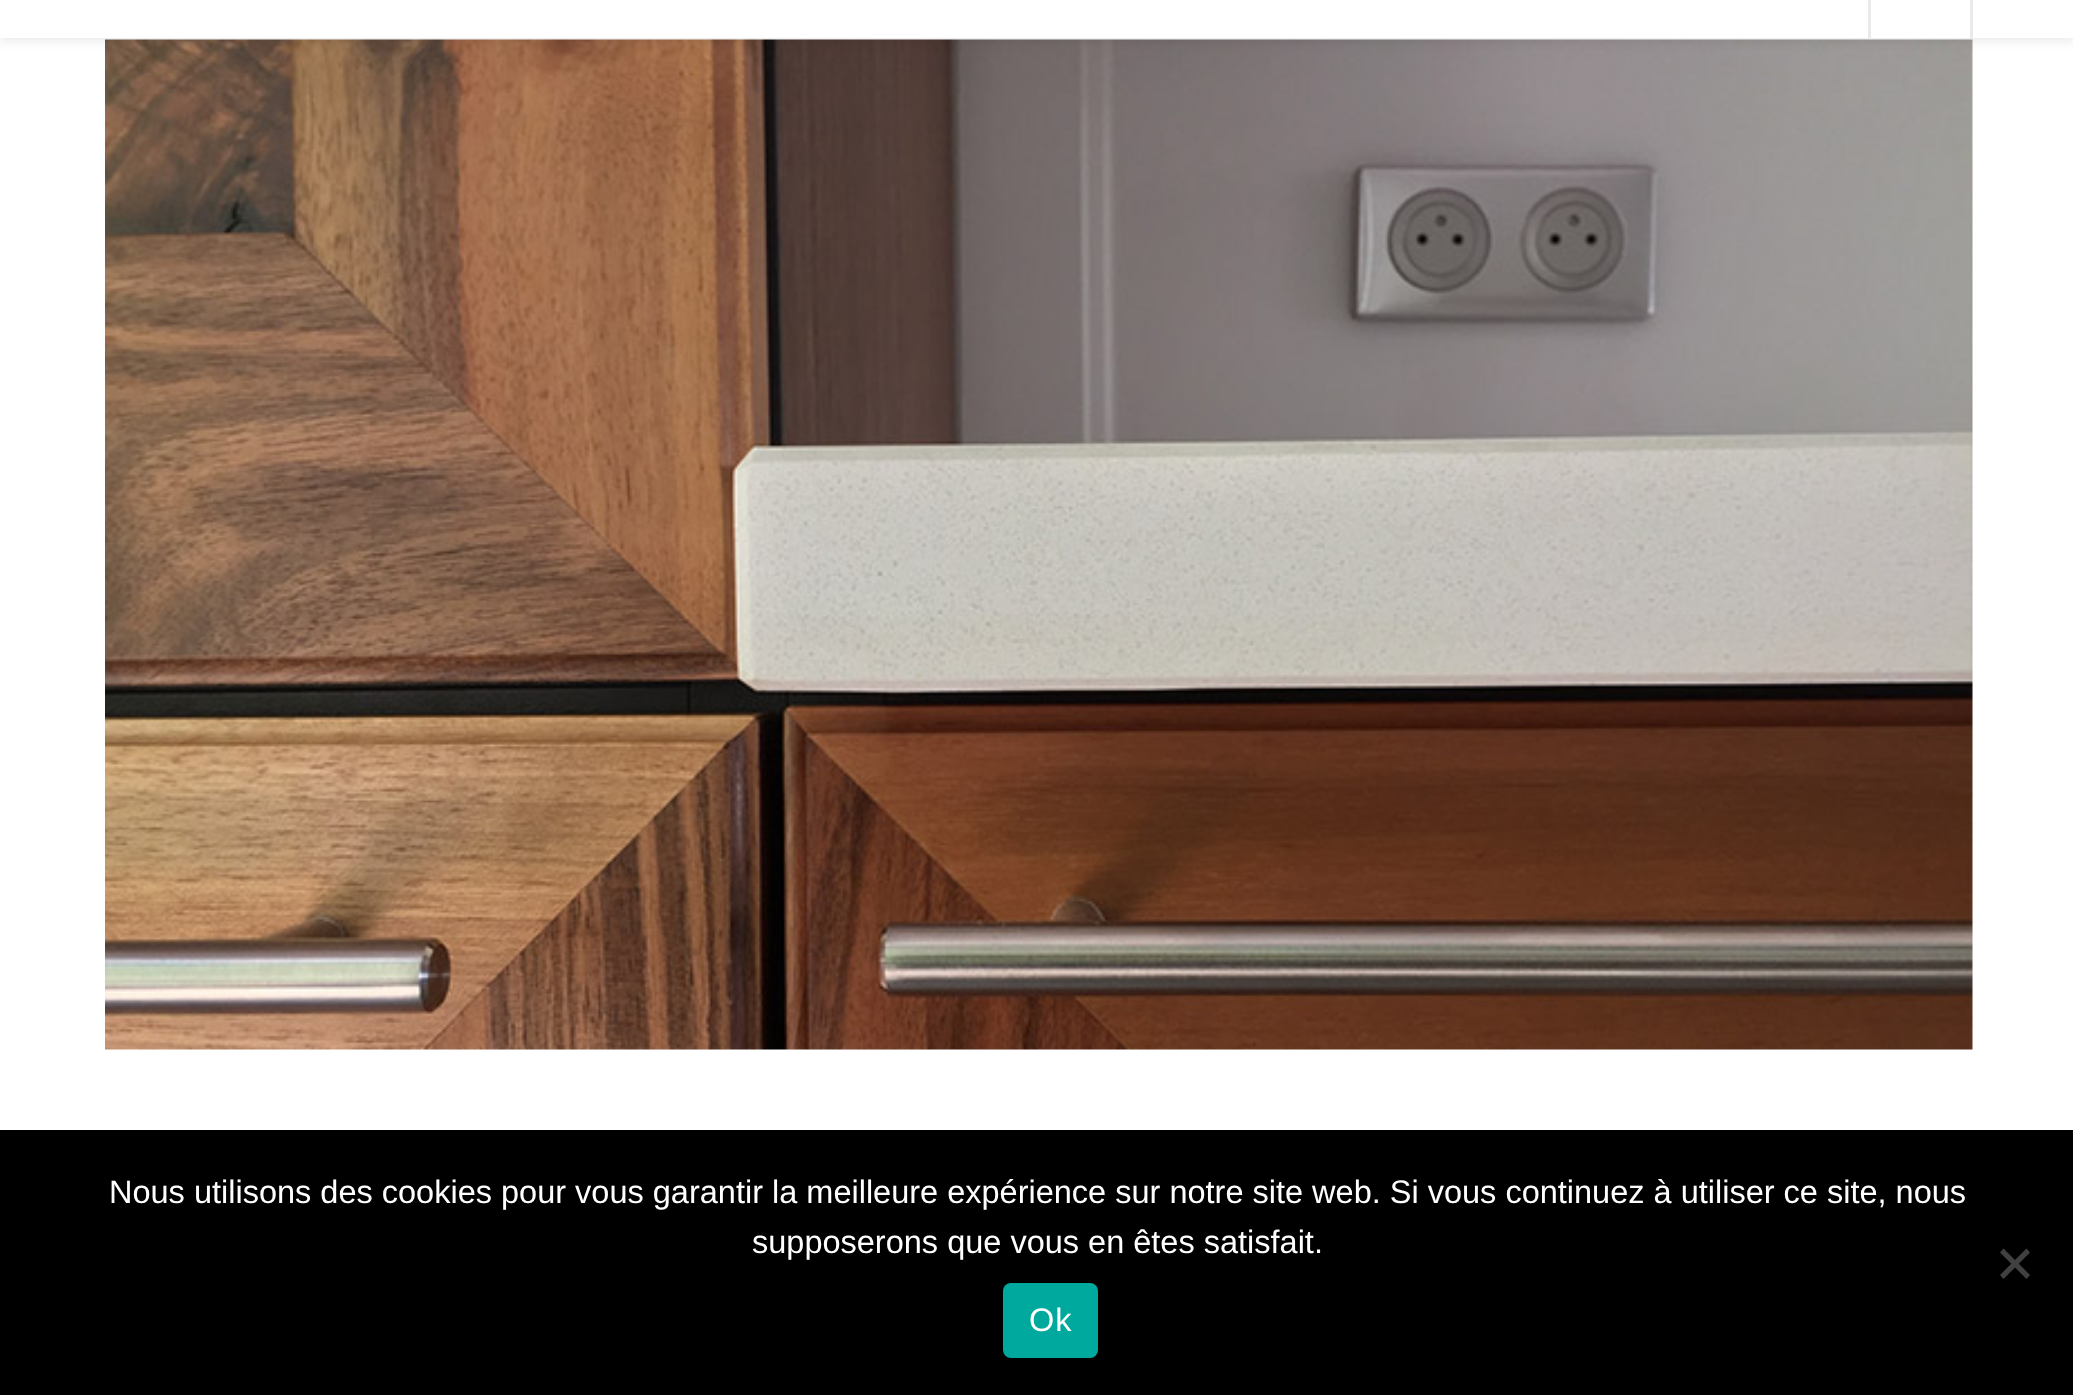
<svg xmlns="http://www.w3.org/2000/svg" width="2073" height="1395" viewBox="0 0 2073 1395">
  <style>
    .t1 { font: 32.5px Liberation Sans; fill: #fff; }
    .t2 { font: 32.5px Liberation Sans; letter-spacing: 1px; fill: #fff; }
  </style>
  <rect width="100%" height="100%" fill="#fff"/>
  <image x="105" y="39" width="1868" height="1011" href="images/1.png"/>
  <rect x="0" y="-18" width="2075" height="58" fill="#0000001a" filter="blur(6px)"/>
  <rect x="0" y="0" width="2073" height="38" fill="#fff"/>
  <rect x="1970" y="0" width="3" height="38" fill="#eaeaea"/>
  <rect x="1868" y="0" width="3" height="38" fill="#eaeaea"/>
  <rect x="0" y="1130" width="2073" height="265" fill="#000"/>
  <text x="109" y="1203" class="t1">Nous utilisons des cookies pour vous garantir la meilleure expérience sur notre site web. Si vous continuez à utiliser ce site, nous</text>
  <text x="752" y="1253" class="t1">supposerons que vous en êtes satisfait.</text>
  <path d="M2026.5 1248.5L2030 1252.5L2003.5 1279L2000 1275Z" fill="#404040"/>
  <path d="M2000 1252.5L2003.5 1248.5L2030 1275L2026.5 1279Z" fill="#404040"/>
  <rect x="1003" y="1283" width="95" height="75" rx="8" fill="#00a99d"/>
  <text x="1029" y="1331" class="t2">Ok</text>
</svg>
